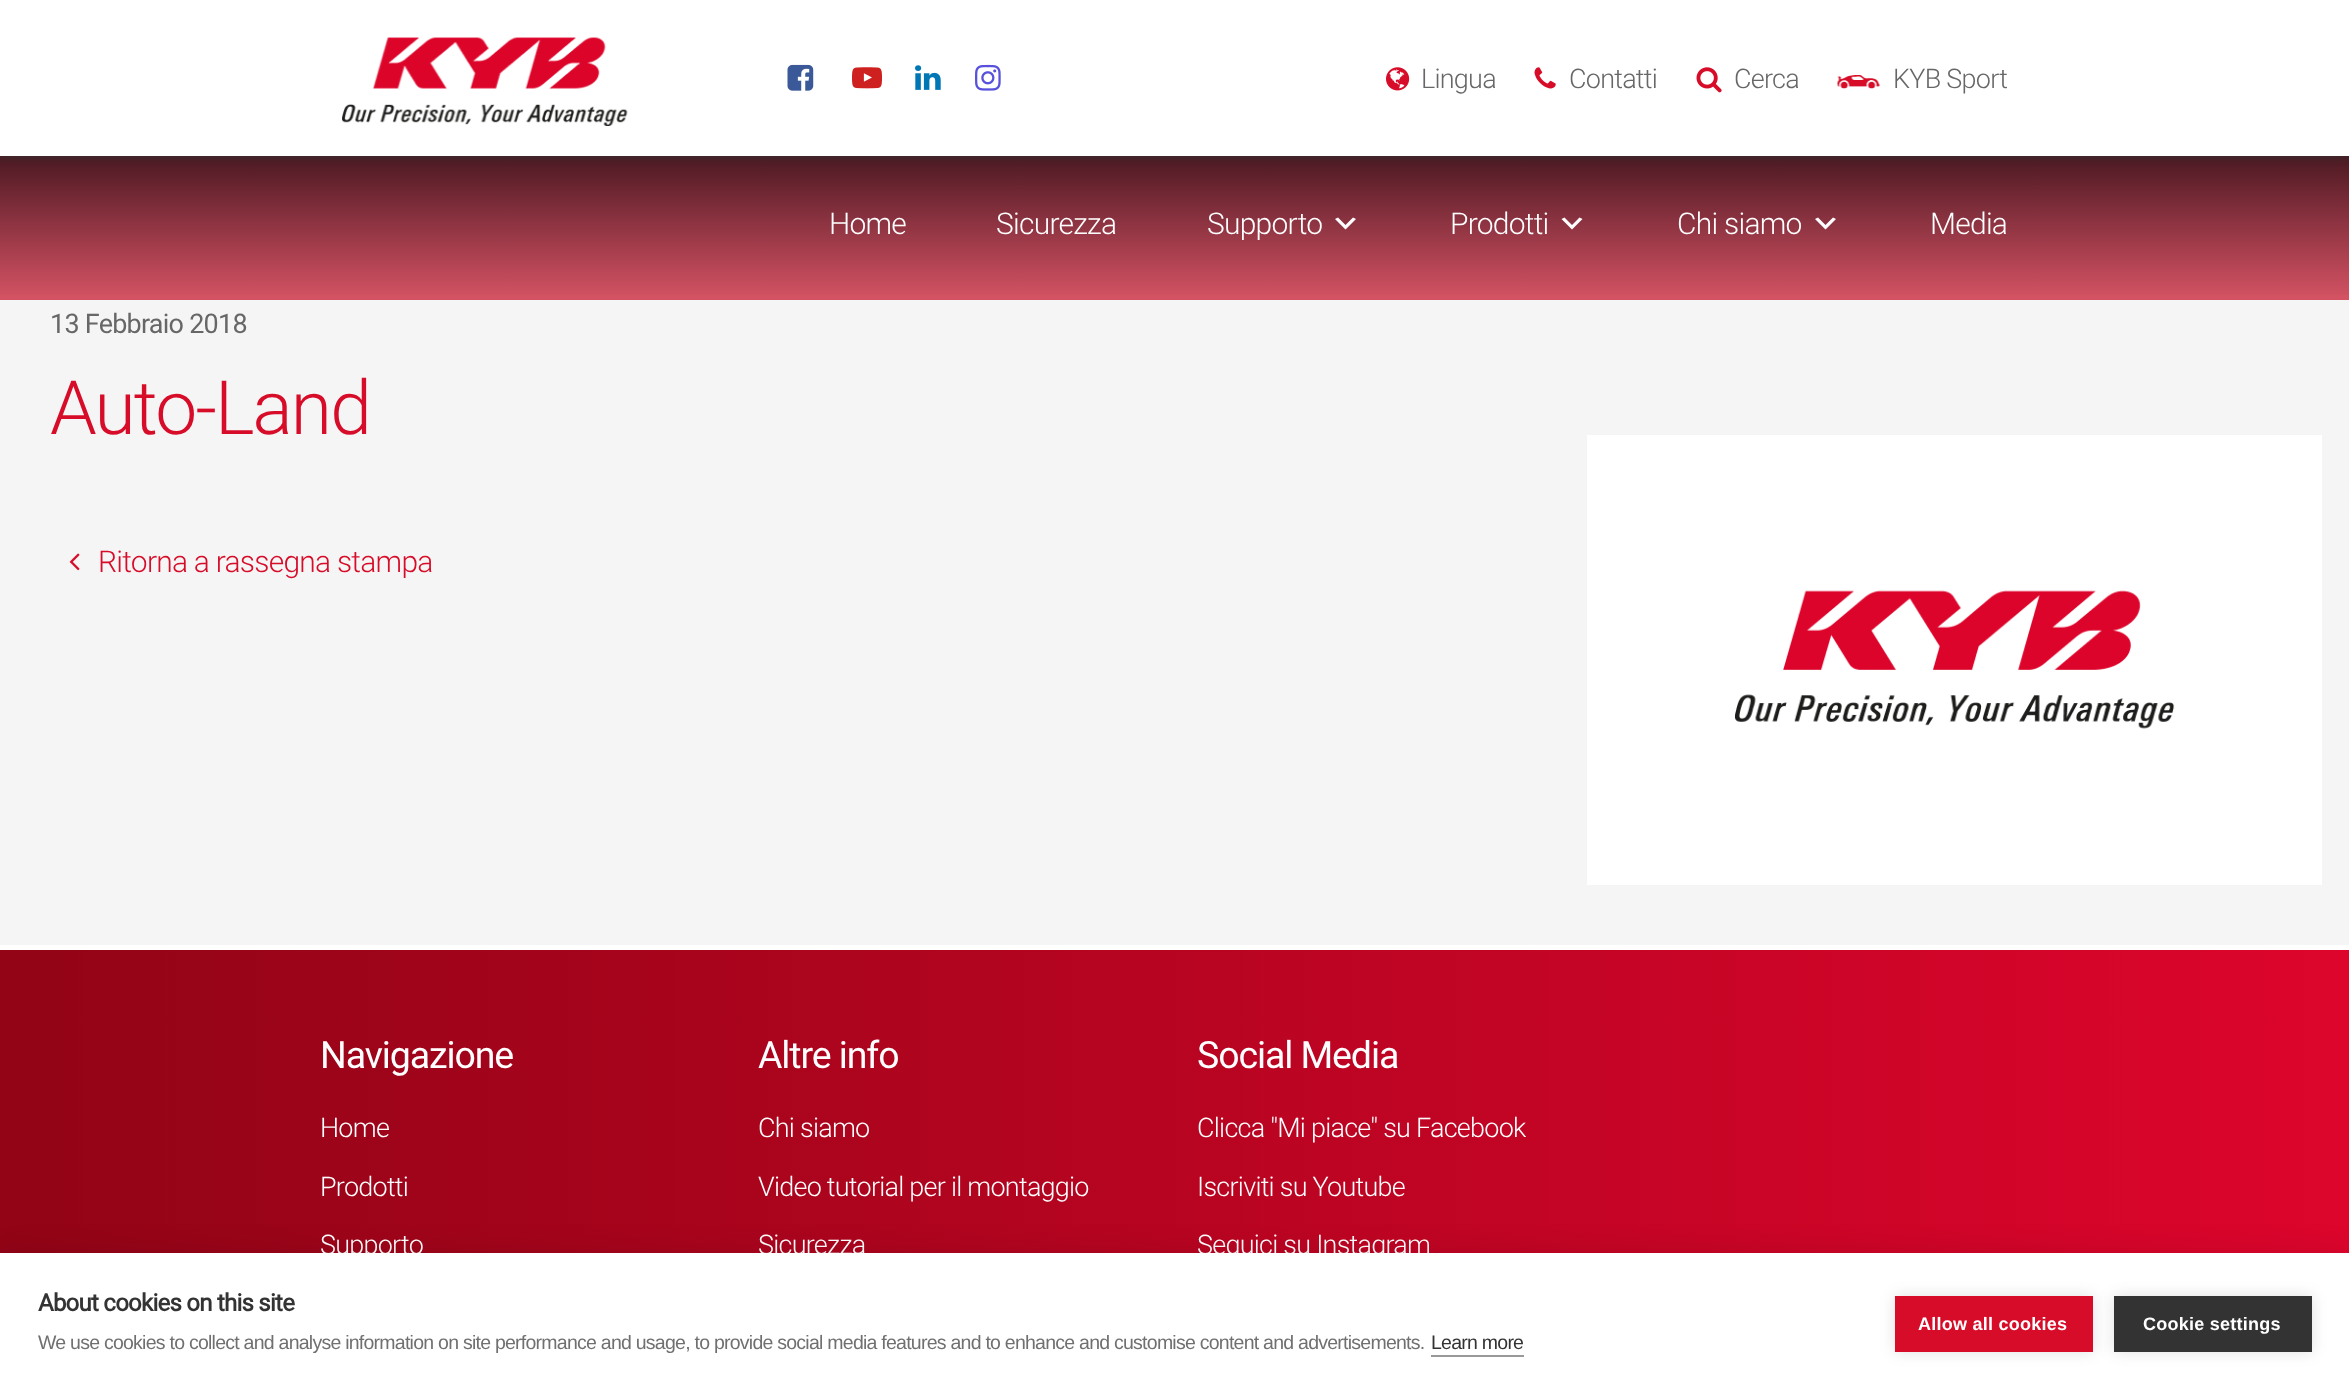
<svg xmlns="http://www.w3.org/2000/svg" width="2349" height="1395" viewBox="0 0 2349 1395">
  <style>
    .t1 { font: 300 27px Roboto; letter-spacing: -0.75px; fill: #676767; }
    .t2 { font: 300 30px Roboto; letter-spacing: -0.75px; fill: #fff; }
    .t3 { font: 27px Roboto; letter-spacing: -0.75px; fill: #676767; }
    .t4 { font: 300 75px Roboto; letter-spacing: -1.9px; fill: #d70c29; }
    .t5 { font: 300 30px Roboto; letter-spacing: -0.75px; fill: #d70c29; }
    .t6 { font: 37.5px Roboto; letter-spacing: -1.1px; fill: #fff; }
    .t7 { font: 300 27px Roboto; letter-spacing: -0.75px; fill: #fff; }
    .t8 { font: bold 24px Roboto; letter-spacing: -0.75px; fill: #333; }
    .t9 { font: 19.5px Liberation Sans; letter-spacing: -0.75px; fill: #707070; }
    .t10 { font: 19.5px Liberation Sans; letter-spacing: -0.75px; fill: #333; }
    .t11 { font: bold 18px Liberation Sans; letter-spacing: 0.25px; fill: #fff; }
  </style>
  <defs>
    <linearGradient id="g1" gradientUnits="userSpaceOnUse" x1="1175" y1="150" x2="1175" y2="300"><stop offset="0" stop-color="#e44d68"/><stop offset="1" stop-color="#d35363"/></linearGradient>
    <linearGradient id="g2" gradientUnits="userSpaceOnUse" x1="1175" y1="150" x2="1175" y2="300"><stop offset="0" stop-color="#000" stop-opacity="0.7"/><stop offset="1" stop-color="#000" stop-opacity="0"/></linearGradient>
    <linearGradient id="g3" gradientUnits="userSpaceOnUse" x1="2349" y1="1273" x2="0" y2="1273"><stop offset="0" stop-color="#dd052c"/><stop offset="1" stop-color="#920416"/></linearGradient>
  </defs>
  <rect width="100%" height="100%" fill="#f5f5f5"/>
  <rect x="0" y="156" width="2349" height="144" fill="url(#g1)"/>
  <rect x="0" y="156" width="2349" height="139" fill="url(#g2)"/>
  <rect x="0" y="0" width="2349" height="156" fill="#333" filter="blur(4px)"/>
  <rect x="0" y="0" width="2349" height="156" fill="#fff"/>
  <image x="342" y="37" width="286" height="89" href="images/1.png"/>
  <image x="787" y="64" width="27" height="27" href="images/2.png"/>
  <image x="852" y="67" width="30" height="22" href="images/3.png"/>
  <image x="915" y="65" width="26" height="25" href="images/4.png"/>
  <image x="975" y="64" width="26" height="27" href="images/5.png"/>
  <image x="1386" y="67" width="24" height="24" href="images/6.png"/>
  <text x="1421" y="88" class="t1">Lingua</text>
  <image x="1534" y="67" width="22" height="22" href="images/7.png"/>
  <text x="1569" y="88" class="t1">Contatti</text>
  <image x="1696" y="67" width="26" height="26" href="images/8.png"/>
  <text x="1734" y="88" class="t1">Cerca</text>
  <image x="1837" y="75" width="43" height="14" href="images/9.png"/>
  <text x="1893" y="88" class="t1">KYB Sport</text>
  <text x="829" y="234" class="t2">Home</text>
  <text x="996" y="234" class="t2">Sicurezza</text>
  <text x="1207" y="234" class="t2">Supporto</text>
  <path d="M1338 217.5L1345.5 225L1353 217.5L1356 219L1345.5 229.5L1335 219Z" fill="#fff"/>
  <text x="1450" y="234" class="t2">Prodotti</text>
  <path d="M1564.5 217.5L1572 225L1579.5 217.5L1582.5 219L1572 229.5L1561.5 219Z" fill="#fff"/>
  <text x="1677" y="234" class="t2">Chi siamo</text>
  <path d="M1818 217.5L1825.5 225L1833 217.5L1836 219L1825.5 229.5L1815 219Z" fill="#fff"/>
  <text x="1930" y="234" class="t2">Media</text>
  <text x="50" y="333" class="t3">13 Febbraio 2018</text>
  <text x="50" y="434" class="t4">Auto-Land</text>
  <image x="69" y="553" width="11" height="18" href="images/10.png"/>
  <text x="98" y="572" class="t5">Ritorna a rassegna stampa</text>
  <rect x="1587" y="435" width="735" height="450" fill="#fff"/>
  <image x="1735" y="590" width="440" height="139" href="images/11.png"/>
  <rect x="0" y="945" width="2349" height="5" fill="#fff"/>
  <rect x="0" y="950" width="2349" height="303" fill="url(#g3)"/>
  <text x="320" y="1068" class="t6">Navigazione</text>
  <text x="320" y="1137" class="t7">Home</text>
  <text x="320" y="1196" class="t7">Prodotti</text>
  <text x="320" y="1254" class="t7">Supporto</text>
  <text x="758" y="1068" class="t6">Altre info</text>
  <text x="758" y="1137" class="t7">Chi siamo</text>
  <text x="758" y="1196" class="t7">Video tutorial per il montaggio</text>
  <text x="758" y="1254" class="t7">Sicurezza</text>
  <text x="1197" y="1068" class="t6">Social Media</text>
  <text x="1197" y="1137" class="t7">Clicca "Mi piace" su Facebook</text>
  <text x="1197" y="1196" class="t7">Iscriviti su Youtube</text>
  <text x="1197" y="1254" class="t7">Seguici su Instagram</text>
  <rect x="0" y="1253" width="2349" height="142" fill="#0000001a" filter="blur(15px)"/>
  <rect x="0" y="1253" width="2349" height="142" fill="#fff"/>
  <text x="38" y="1311" class="t8">About cookies on this site</text>
  <text x="38" y="1349" class="t9">We use cookies to collect and analyse information on site performance and usage, to provide social media features and to enhance and customise content and advertisements.</text>
  <text x="1431" y="1349" class="t10">Learn more</text>
  <rect x="1431" y="1355" width="93" height="2" fill="#999"/>
  <rect x="1895" y="1296" width="198" height="56" fill="#0000001f" filter="blur(7.5px)"/>
  <rect x="1895" y="1296" width="198" height="56" fill="#d70c29"/>
  <text x="1918" y="1330" class="t11">Allow all cookies</text>
  <rect x="2114" y="1296" width="198" height="56" fill="#0000001f" filter="blur(7.5px)"/>
  <rect x="2114" y="1296" width="198" height="56" fill="#333"/>
  <text x="2143" y="1330" class="t11">Cookie settings</text>
</svg>
